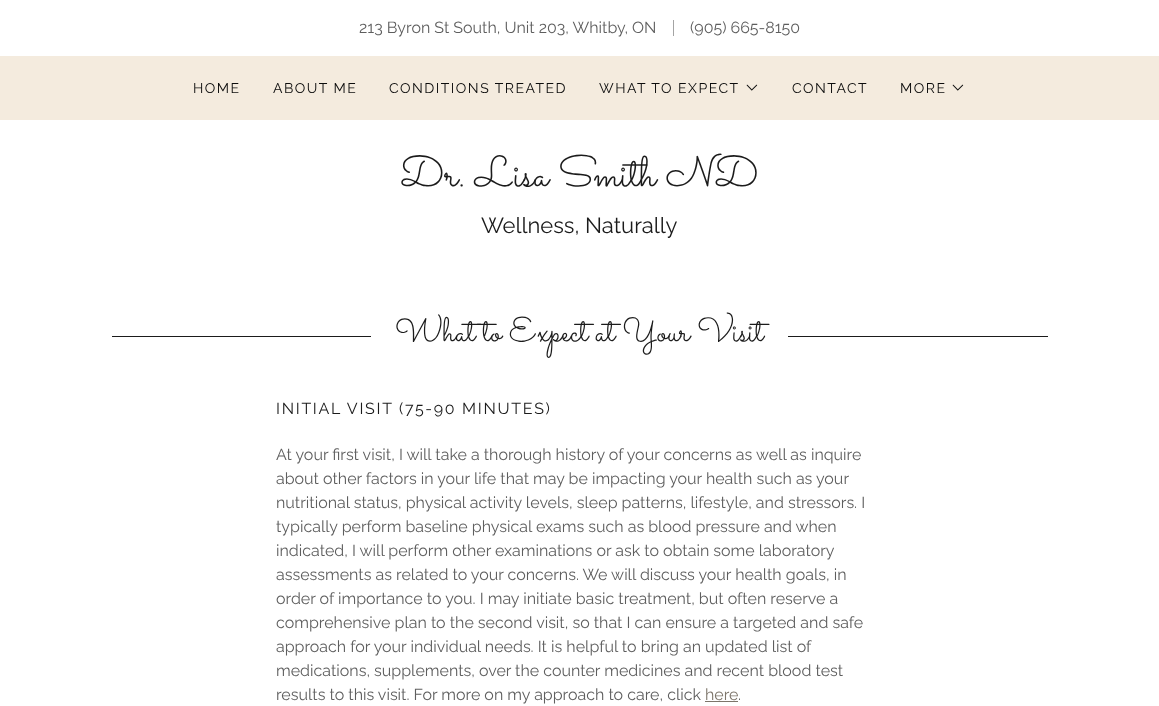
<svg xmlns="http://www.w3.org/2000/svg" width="1159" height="706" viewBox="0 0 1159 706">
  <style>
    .t1 { font: 16px Raleway; fill: #5e5e5e; }
    .t2 { font: 14px Raleway; letter-spacing: 1.5px; fill: #0c0c0c; }
    .t3 { font: 43px Sacramento; fill: #1b1b1b; }
    .t4 { font: 22px Raleway; fill: #1b1b1b; }
    .t5 { font: 34px Sacramento; fill: #1b1b1b; }
    .t6 { font: 16px Raleway; letter-spacing: 1.7px; fill: #1b1b1b; }
    .t7 { font: 16px Raleway; fill: #7d756a; }
  </style>
  <rect width="100%" height="100%" fill="#fff"/>
  <text x="359" y="33" class="t1">213 Byron St South, Unit 203, Whitby, ON</text>
  <rect x="673" y="20" width="1" height="16" fill="#a4a4a4"/>
  <text x="690" y="33" class="t1">(905) 665-8150</text>
  <rect x="0" y="56" width="1159" height="64" fill="#f4ebde"/>
  <text x="193" y="93" class="t2">HOME</text>
  <text x="273" y="93" class="t2">ABOUT ME</text>
  <text x="389" y="93" class="t2">CONDITIONS TREATED</text>
  <text x="599" y="93" class="t2">WHAT TO EXPECT</text>
  <image x="746" y="84" width="12" height="7" href="images/1.png"/>
  <text x="792" y="93" class="t2">CONTACT</text>
  <text x="900" y="93" class="t2">MORE</text>
  <image x="952" y="84" width="12" height="7" href="images/1.png"/>
  <text x="400" y="186" class="t3">Dr. Lisa Smith ND</text>
  <text x="481" y="233" class="t4">Wellness, Naturally</text>
  <rect x="112" y="336" width="259" height="1" fill="#1b1b1b"/>
  <text x="395" y="341" class="t5">What to Expect at Your Visit</text>
  <rect x="788" y="336" width="260" height="1" fill="#1b1b1b"/>
  <text x="276" y="414" class="t6">INITIAL VISIT (75-90 MINUTES)</text>
  <text x="276" y="460" class="t1">At your first visit, I will take a thorough history of your concerns as well as inquire</text>
  <text x="276" y="484" class="t1">about other factors in your life that may be impacting your health such as your</text>
  <text x="276" y="508" class="t1">nutritional status, physical activity levels, sleep patterns, lifestyle, and stressors. I</text>
  <text x="276" y="532" class="t1">typically perform baseline physical exams such as blood pressure and when</text>
  <text x="276" y="556" class="t1">indicated, I will perform other examinations or ask to obtain some laboratory</text>
  <text x="276" y="580" class="t1">assessments as related to your concerns. We will discuss your health goals, in</text>
  <text x="276" y="604" class="t1">order of importance to you. I may initiate basic treatment, but often reserve a</text>
  <text x="276" y="628" class="t1">comprehensive plan to the second visit, so that I can ensure a targeted and safe</text>
  <text x="276" y="652" class="t1">approach for your individual needs. It is helpful to bring an updated list of</text>
  <text x="276" y="676" class="t1">medications, supplements, over the counter medicines and recent blood test</text>
  <text x="276" y="700" class="t1">results to this visit. For more on my approach to care, click</text>
  <text x="705" y="700" class="t7">here</text>
  <text x="738" y="700" class="t1">.</text>
  <rect x="705" y="701" width="33" height="1" fill="#7d756a"/>
</svg>
